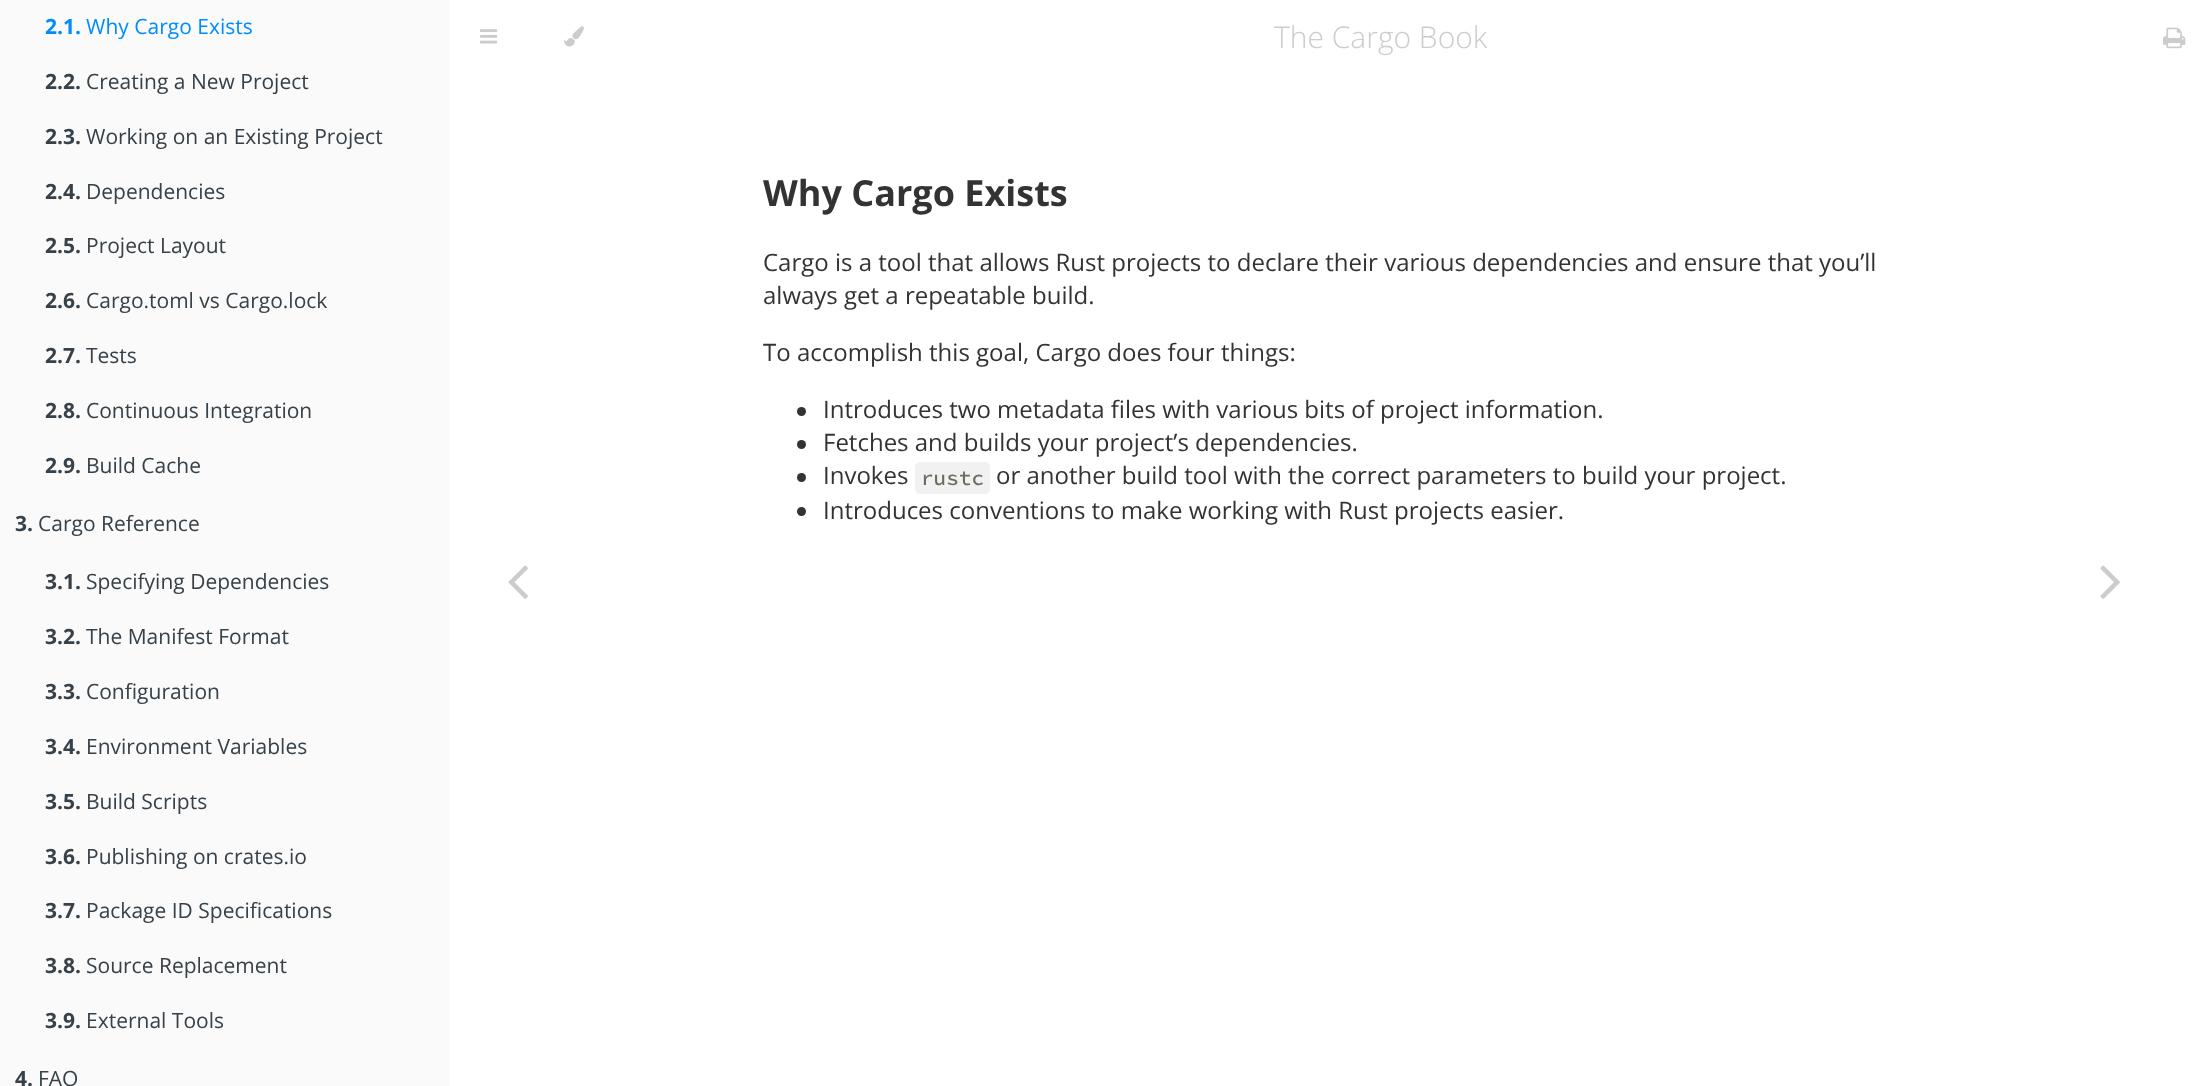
<svg xmlns="http://www.w3.org/2000/svg" width="2200" height="1086" viewBox="0 0 2200 1086">
  <style>
    .t1 { font: bold 21px Open Sans; fill: #008cff; }
    .t2 { font: 21px Open Sans; fill: #008cff; }
    .t3 { font: bold 21px Open Sans; fill: #364149; }
    .t4 { font: 21px Open Sans; fill: #364149; }
    .t5 { font: 300 30px Open Sans; fill: #ccc; }
    .t6 { font: bold 36px Open Sans; fill: #333; }
    .t7 { font: 24px Open Sans; fill: #333; }
    .t8 { font: 200 21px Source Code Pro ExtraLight; fill: #6e6b5e; }
  </style>
  <rect width="100%" height="100%" fill="#fff"/>
  <rect x="0" y="0" width="450" height="1086" fill="#fafafa"/>
  <text x="45" y="34" class="t1">2.1.</text>
  <text x="86" y="34" class="t2">Why Cargo Exists</text>
  <text x="45" y="89" class="t3">2.2.</text>
  <text x="86" y="89" class="t4">Creating a New Project</text>
  <text x="45" y="144" class="t3">2.3.</text>
  <text x="86" y="144" class="t4">Working on an Existing Project</text>
  <text x="45" y="199" class="t3">2.4.</text>
  <text x="86" y="199" class="t4">Dependencies</text>
  <text x="45" y="253" class="t3">2.5.</text>
  <text x="86" y="253" class="t4">Project Layout</text>
  <text x="45" y="308" class="t3">2.6.</text>
  <text x="86" y="308" class="t4">Cargo.toml vs Cargo.lock</text>
  <text x="45" y="363" class="t3">2.7.</text>
  <text x="86" y="363" class="t4">Tests</text>
  <text x="45" y="418" class="t3">2.8.</text>
  <text x="86" y="418" class="t4">Continuous Integration</text>
  <text x="45" y="473" class="t3">2.9.</text>
  <text x="86" y="473" class="t4">Build Cache</text>
  <text x="15" y="531" class="t3">3.</text>
  <text x="38" y="531" class="t4">Cargo Reference</text>
  <text x="45" y="589" class="t3">3.1.</text>
  <text x="86" y="589" class="t4">Specifying Dependencies</text>
  <text x="45" y="644" class="t3">3.2.</text>
  <text x="86" y="644" class="t4">The Manifest Format</text>
  <text x="45" y="699" class="t3">3.3.</text>
  <text x="86" y="699" class="t4">Configuration</text>
  <text x="45" y="754" class="t3">3.4.</text>
  <text x="86" y="754" class="t4">Environment Variables</text>
  <text x="45" y="809" class="t3">3.5.</text>
  <text x="86" y="809" class="t4">Build Scripts</text>
  <text x="45" y="864" class="t3">3.6.</text>
  <text x="86" y="864" class="t4">Publishing on crates.io</text>
  <text x="45" y="918" class="t3">3.7.</text>
  <text x="86" y="918" class="t4">Package ID Specifications</text>
  <text x="45" y="973" class="t3">3.8.</text>
  <text x="86" y="973" class="t4">Source Replacement</text>
  <text x="45" y="1028" class="t3">3.9.</text>
  <text x="86" y="1028" class="t4">External Tools</text>
  <text x="15" y="1086" class="t3">4.</text>
  <text x="38" y="1086" class="t4">FAQ</text>
  <image x="480" y="29" width="18" height="15" href="images/1.png"/>
  <image x="564" y="26" width="20" height="21" href="images/2.png"/>
  <text x="1274" y="48" class="t5">The Cargo Book</text>
  <image x="2163" y="27" width="23" height="22" href="images/3.png"/>
  <text x="763" y="206" class="t6">Why Cargo Exists</text>
  <text x="763" y="271" class="t7">Cargo is a tool that allows Rust projects to declare their various dependencies and ensure that you’ll</text>
  <text x="763" y="304" class="t7">always get a repeatable build.</text>
  <text x="763" y="361" class="t7">To accomplish this goal, Cargo does four things:</text>
  <circle cx="801.5" cy="411.5" r="4.5" fill="#333"/>
  <text x="823" y="418" class="t7">Introduces two metadata files with various bits of project information.</text>
  <circle cx="801.5" cy="444.5" r="4.5" fill="#333"/>
  <text x="823" y="451" class="t7">Fetches and builds your project’s dependencies.</text>
  <circle cx="801.5" cy="477.5" r="4.5" fill="#333"/>
  <text x="823" y="484" class="t7">Invokes</text>
  <rect x="915" y="462" width="75" height="32" rx="5" fill="#f1f1f1"/>
  <text x="921" y="485" class="t8">rustc</text>
  <text x="996" y="484" class="t7">or another build tool with the correct parameters to build your project.</text>
  <circle cx="801.5" cy="511.5" r="4.5" fill="#333"/>
  <text x="823" y="519" class="t7">Introduces conventions to make working with Rust projects easier.</text>
  <image x="508" y="565" width="20" height="34" href="images/4.png"/>
  <image x="2100" y="565" width="20" height="34" href="images/5.png"/>
</svg>
